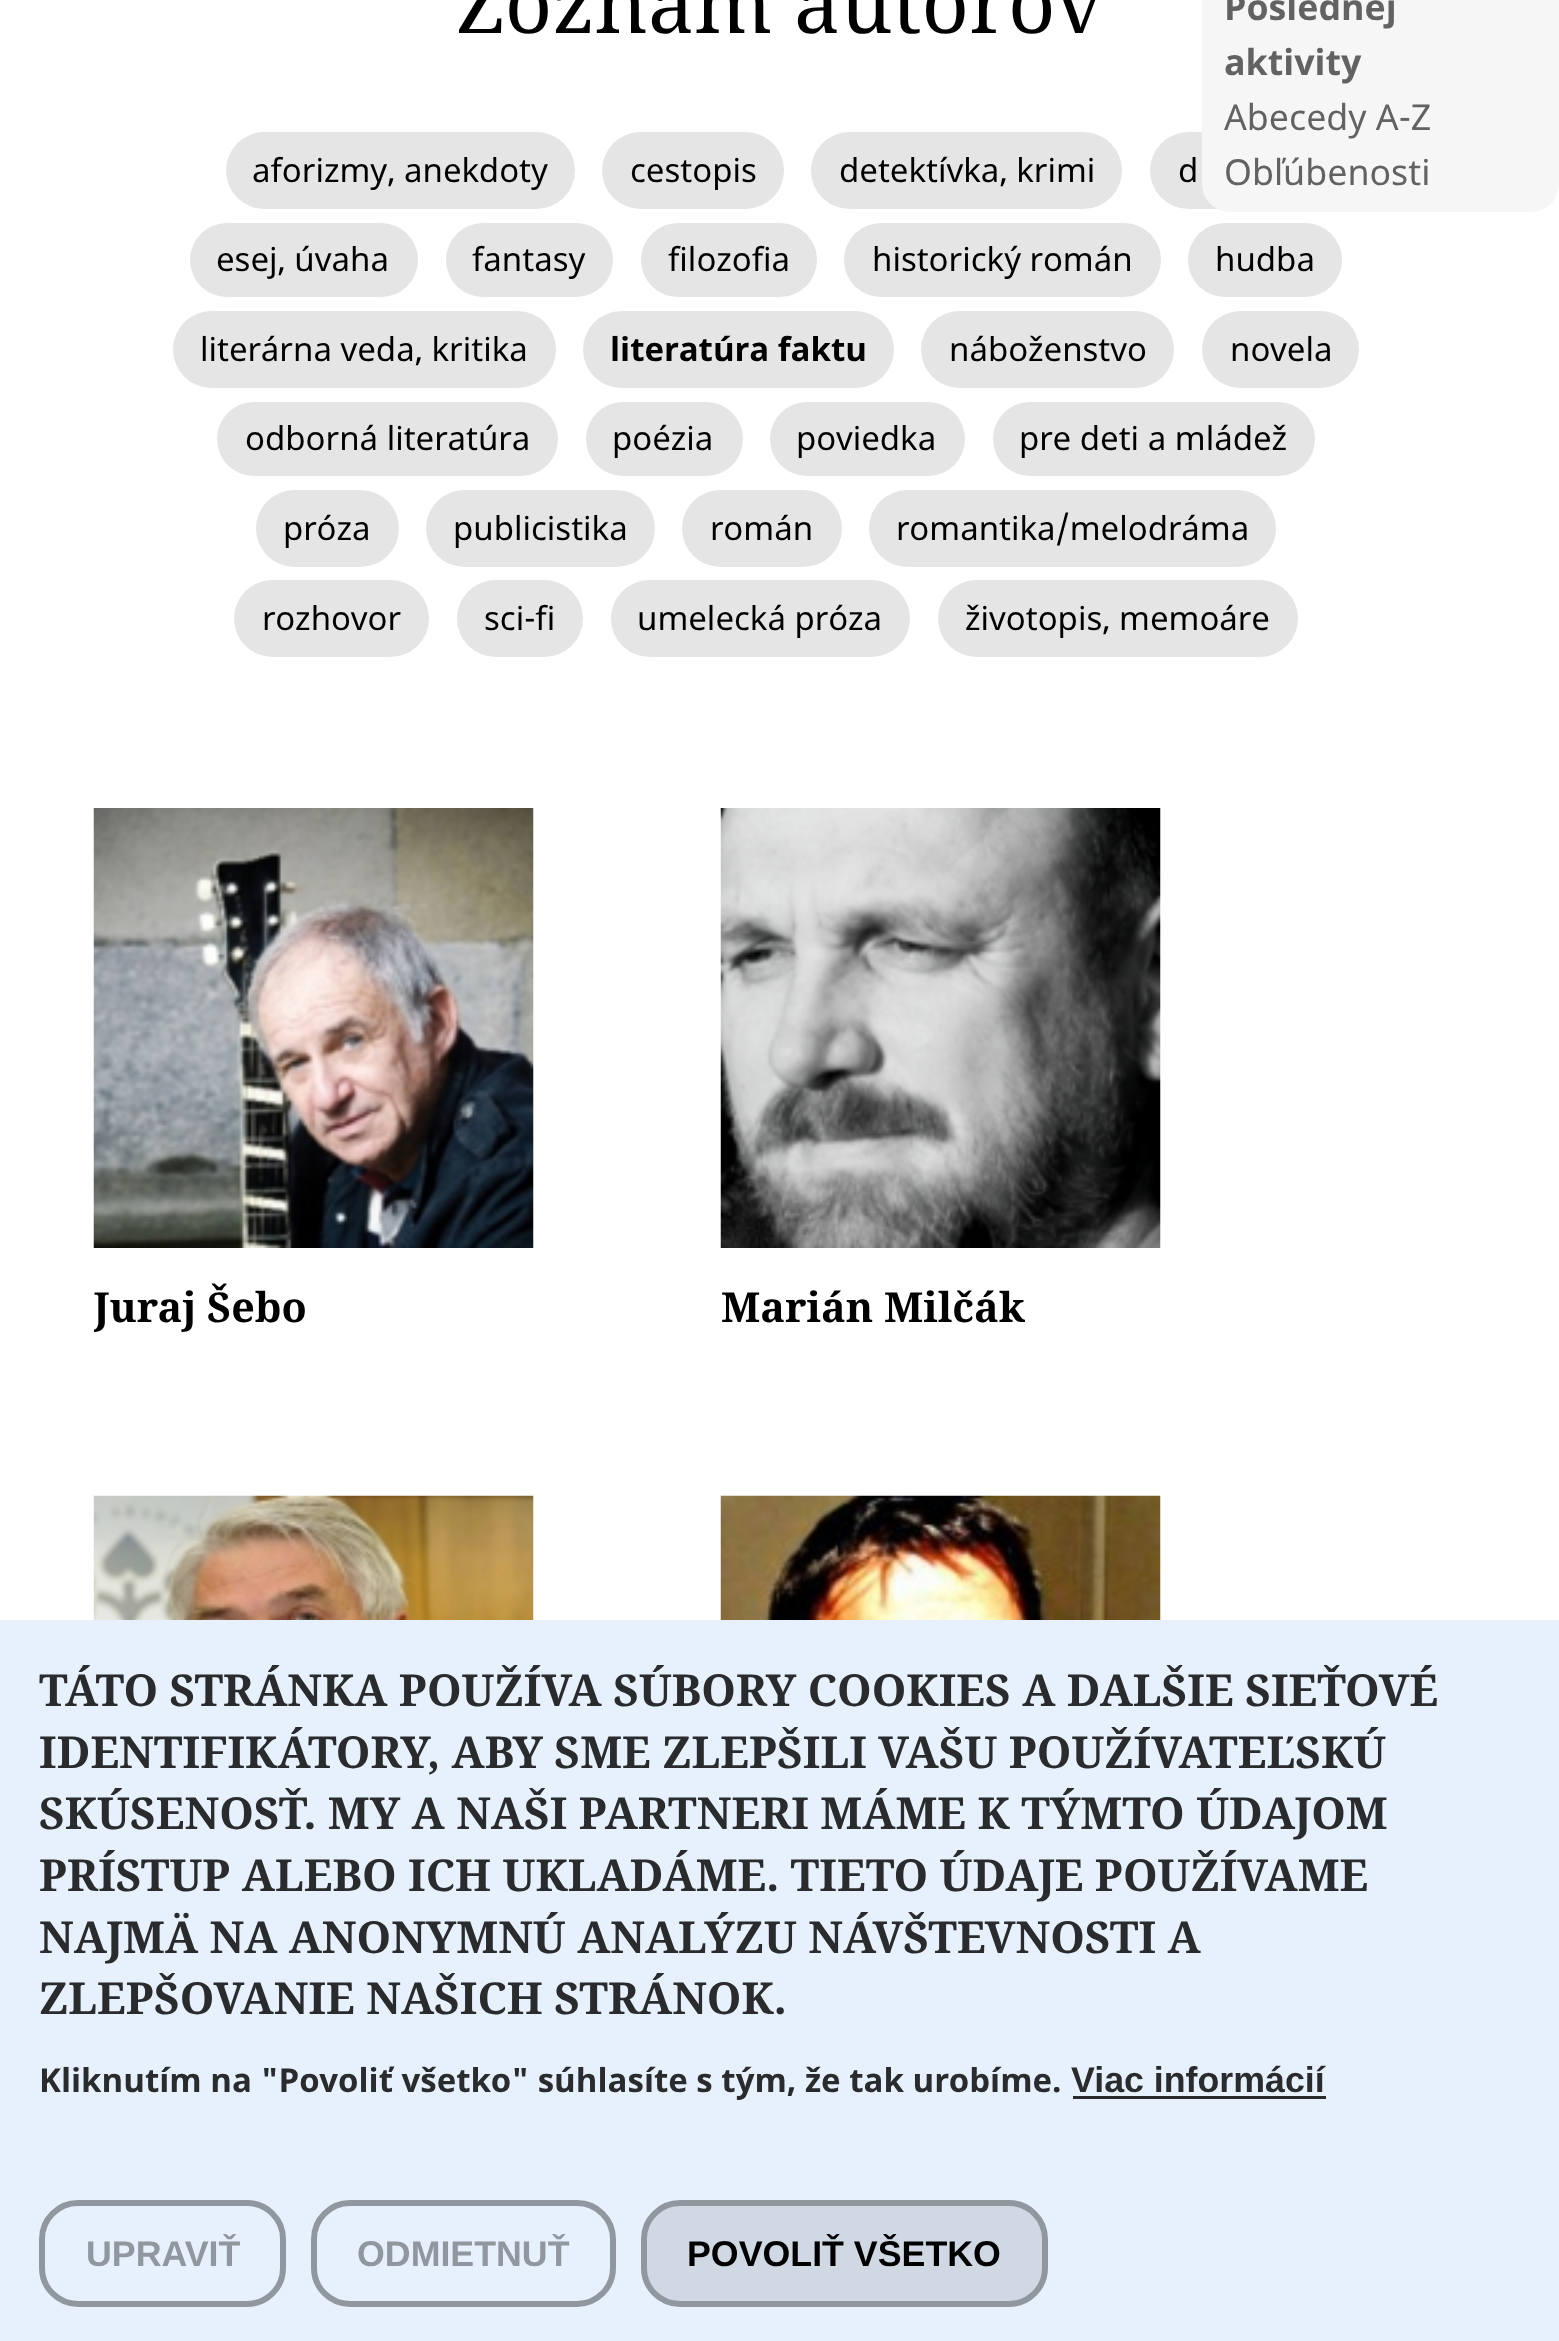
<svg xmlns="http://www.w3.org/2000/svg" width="1559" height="2341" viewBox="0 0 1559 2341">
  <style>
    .t1 { font: bold 35.75px Noto Sans; fill: #626262; }
    .t2 { font: 35.75px Noto Sans; fill: #626262; }
    .t3 { font: 33px Noto Sans; fill: #000; }
    .t4 { font: bold 33px Noto Sans; fill: #000; }
    .t5 { font: bold 41.25px Noto Serif; fill: #000; }
    .t6 { font: 82.5px Noto Serif; fill: #000; }
    .t7 { font: bold 44px Noto Serif; fill: #292b2d; }
    .t8 { font: bold 33px Noto Sans; fill: #292b2d; }
    .t9 { font: bold 35.75px Liberation Sans; fill: #292b2d; }
    .t10 { font: bold 35.75px Liberation Sans; fill: #91979f; }
    .t11 { font: bold 35.75px Liberation Sans; fill: #000; }
  </style>
  <defs>
    <clipPath id="clip1"><rect x="94" y="809" width="440" height="577"/></clipPath>
  </defs>
  <rect width="100%" height="100%" fill="#fff"/>
  <rect x="1150" y="132" width="156" height="77" rx="38.5" fill="#e5e5e5"/>
  <rect x="1202" y="-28" width="357" height="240" rx="28" fill="#f6f6f6"/>
  <text x="1224" y="20" class="t1">Poslednej</text>
  <text x="1224" y="75" class="t1">aktivity</text>
  <text x="1224" y="130" class="t2">Abecedy A-Z</text>
  <text x="1224" y="185" class="t2">Obľúbenosti</text>
  <rect x="226" y="132" width="349" height="77" rx="38.5" fill="#e5e5e5"/>
  <text x="252" y="182" class="t3">aforizmy, anekdoty</text>
  <rect x="602" y="132" width="182" height="77" rx="38.5" fill="#e5e5e5"/>
  <text x="630" y="182" class="t3">cestopis</text>
  <rect x="811" y="132" width="311" height="77" rx="38.5" fill="#e5e5e5"/>
  <text x="839" y="182" class="t3">detektívka, krimi</text>
  <text x="1178" y="182" class="t3">d</text>
  <rect x="190" y="223" width="228" height="74" rx="37" fill="#e5e5e5"/>
  <text x="216" y="271" class="t3">esej, úvaha</text>
  <rect x="446" y="223" width="167" height="74" rx="37" fill="#e5e5e5"/>
  <text x="472" y="271" class="t3">fantasy</text>
  <rect x="641" y="223" width="176" height="74" rx="37" fill="#e5e5e5"/>
  <text x="668" y="271" class="t3">filozofia</text>
  <rect x="844" y="223" width="317" height="74" rx="37" fill="#e5e5e5"/>
  <text x="872" y="271" class="t3">historický román</text>
  <rect x="1188" y="223" width="154" height="74" rx="37" fill="#e5e5e5"/>
  <text x="1215" y="271" class="t3">hudba</text>
  <rect x="173" y="311" width="383" height="77" rx="38.5" fill="#e5e5e5"/>
  <text x="200" y="361" class="t3">literárna veda, kritika</text>
  <rect x="583" y="311" width="311" height="77" rx="38.5" fill="#e5e5e5"/>
  <text x="610" y="361" class="t4">literatúra faktu</text>
  <rect x="921" y="311" width="253" height="77" rx="38.5" fill="#e5e5e5"/>
  <text x="949" y="361" class="t3">náboženstvo</text>
  <rect x="1202" y="311" width="157" height="77" rx="38.5" fill="#e5e5e5"/>
  <text x="1230" y="361" class="t3">novela</text>
  <rect x="217" y="402" width="341" height="74" rx="37" fill="#e5e5e5"/>
  <text x="245" y="450" class="t3">odborná literatúra</text>
  <rect x="586" y="402" width="157" height="74" rx="37" fill="#e5e5e5"/>
  <text x="612" y="450" class="t3">poézia</text>
  <rect x="770" y="402" width="195" height="74" rx="37" fill="#e5e5e5"/>
  <text x="796" y="450" class="t3">poviedka</text>
  <rect x="993" y="402" width="322" height="74" rx="37" fill="#e5e5e5"/>
  <text x="1019" y="450" class="t3">pre deti a mládež</text>
  <rect x="256" y="490" width="143" height="77" rx="38.5" fill="#e5e5e5"/>
  <text x="283" y="540" class="t3">próza</text>
  <rect x="426" y="490" width="229" height="77" rx="38.5" fill="#e5e5e5"/>
  <text x="453" y="540" class="t3">publicistika</text>
  <rect x="682" y="490" width="160" height="77" rx="38.5" fill="#e5e5e5"/>
  <text x="710" y="540" class="t3">román</text>
  <rect x="869" y="490" width="407" height="77" rx="38.5" fill="#e5e5e5"/>
  <text x="896" y="540" class="t3">romantika/melodráma</text>
  <rect x="234" y="580" width="195" height="77" rx="38.5" fill="#e5e5e5"/>
  <text x="262" y="630" class="t3">rozhovor</text>
  <rect x="457" y="580" width="126" height="77" rx="38.5" fill="#e5e5e5"/>
  <text x="484" y="630" class="t3">sci-fi</text>
  <rect x="611" y="580" width="299" height="77" rx="38.5" fill="#e5e5e5"/>
  <text x="637" y="630" class="t3">umelecká próza</text>
  <rect x="938" y="580" width="360" height="77" rx="38.5" fill="#e5e5e5"/>
  <text x="965" y="630" class="t3">životopis, memoáre</text>
  <image x="93" y="808" width="441" height="440" href="images/1.png"/>
  <g clip-path="url(#clip1)">
    <text x="94" y="1322" class="t5">Juraj Šebo</text>
  </g>
  <image x="720" y="808" width="441" height="440" href="images/2.png"/>
  <text x="721" y="1322" class="t5">Marián Milčák</text>
  <image x="93" y="1495" width="441" height="125" href="images/3.png"/>
  <image x="720" y="1495" width="441" height="125" href="images/4.png"/>
  <text x="456" y="33" class="t6">Zoznam autorov</text>
  <rect x="0" y="1620" width="1559" height="721" fill="#e7f0fd"/>
  <text x="39" y="1706" class="t7">TÁTO STRÁNKA POUŽÍVA SÚBORY COOKIES A DALŠIE SIEŤOVÉ</text>
  <text x="39" y="1768" class="t7">IDENTIFIKÁTORY, ABY SME ZLEPŠILI VAŠU POUŽÍVATEĽSKÚ</text>
  <text x="39" y="1829" class="t7">SKÚSENOSŤ. MY A NAŠI PARTNERI MÁME K TÝMTO ÚDAJOM</text>
  <text x="39" y="1891" class="t7">PRÍSTUP ALEBO ICH UKLADÁME. TIETO ÚDAJE POUŽÍVAME</text>
  <text x="39" y="1953" class="t7">NAJMÄ NA ANONYMNÚ ANALÝZU NÁVŠTEVNOSTI A</text>
  <text x="39" y="2014" class="t7">ZLEPŠOVANIE NAŠICH STRÁNOK.</text>
  <text x="39" y="2092" class="t8">Kliknutím na "Povoliť všetko" súhlasíte s tým, že tak urobíme.</text>
  <text x="1071" y="2092" class="t9">Viac informácií</text>
  <rect x="1073" y="2096" width="253" height="3" fill="#292b2d"/>
  <rect x="42" y="2203" width="241" height="101" rx="36" fill="none" stroke="#91979f" stroke-width="6"/>
  <text x="86" y="2266" class="t10">UPRAVIŤ</text>
  <rect x="314" y="2203" width="299" height="101" rx="36" fill="none" stroke="#91979f" stroke-width="6"/>
  <text x="357" y="2266" class="t10">ODMIETNUŤ</text>
  <rect x="644" y="2203" width="401" height="101" rx="36" fill="#cfd8e3" stroke="#91979f" stroke-width="6"/>
  <text x="687" y="2266" class="t11">POVOLIŤ VŠETKO</text>
</svg>
